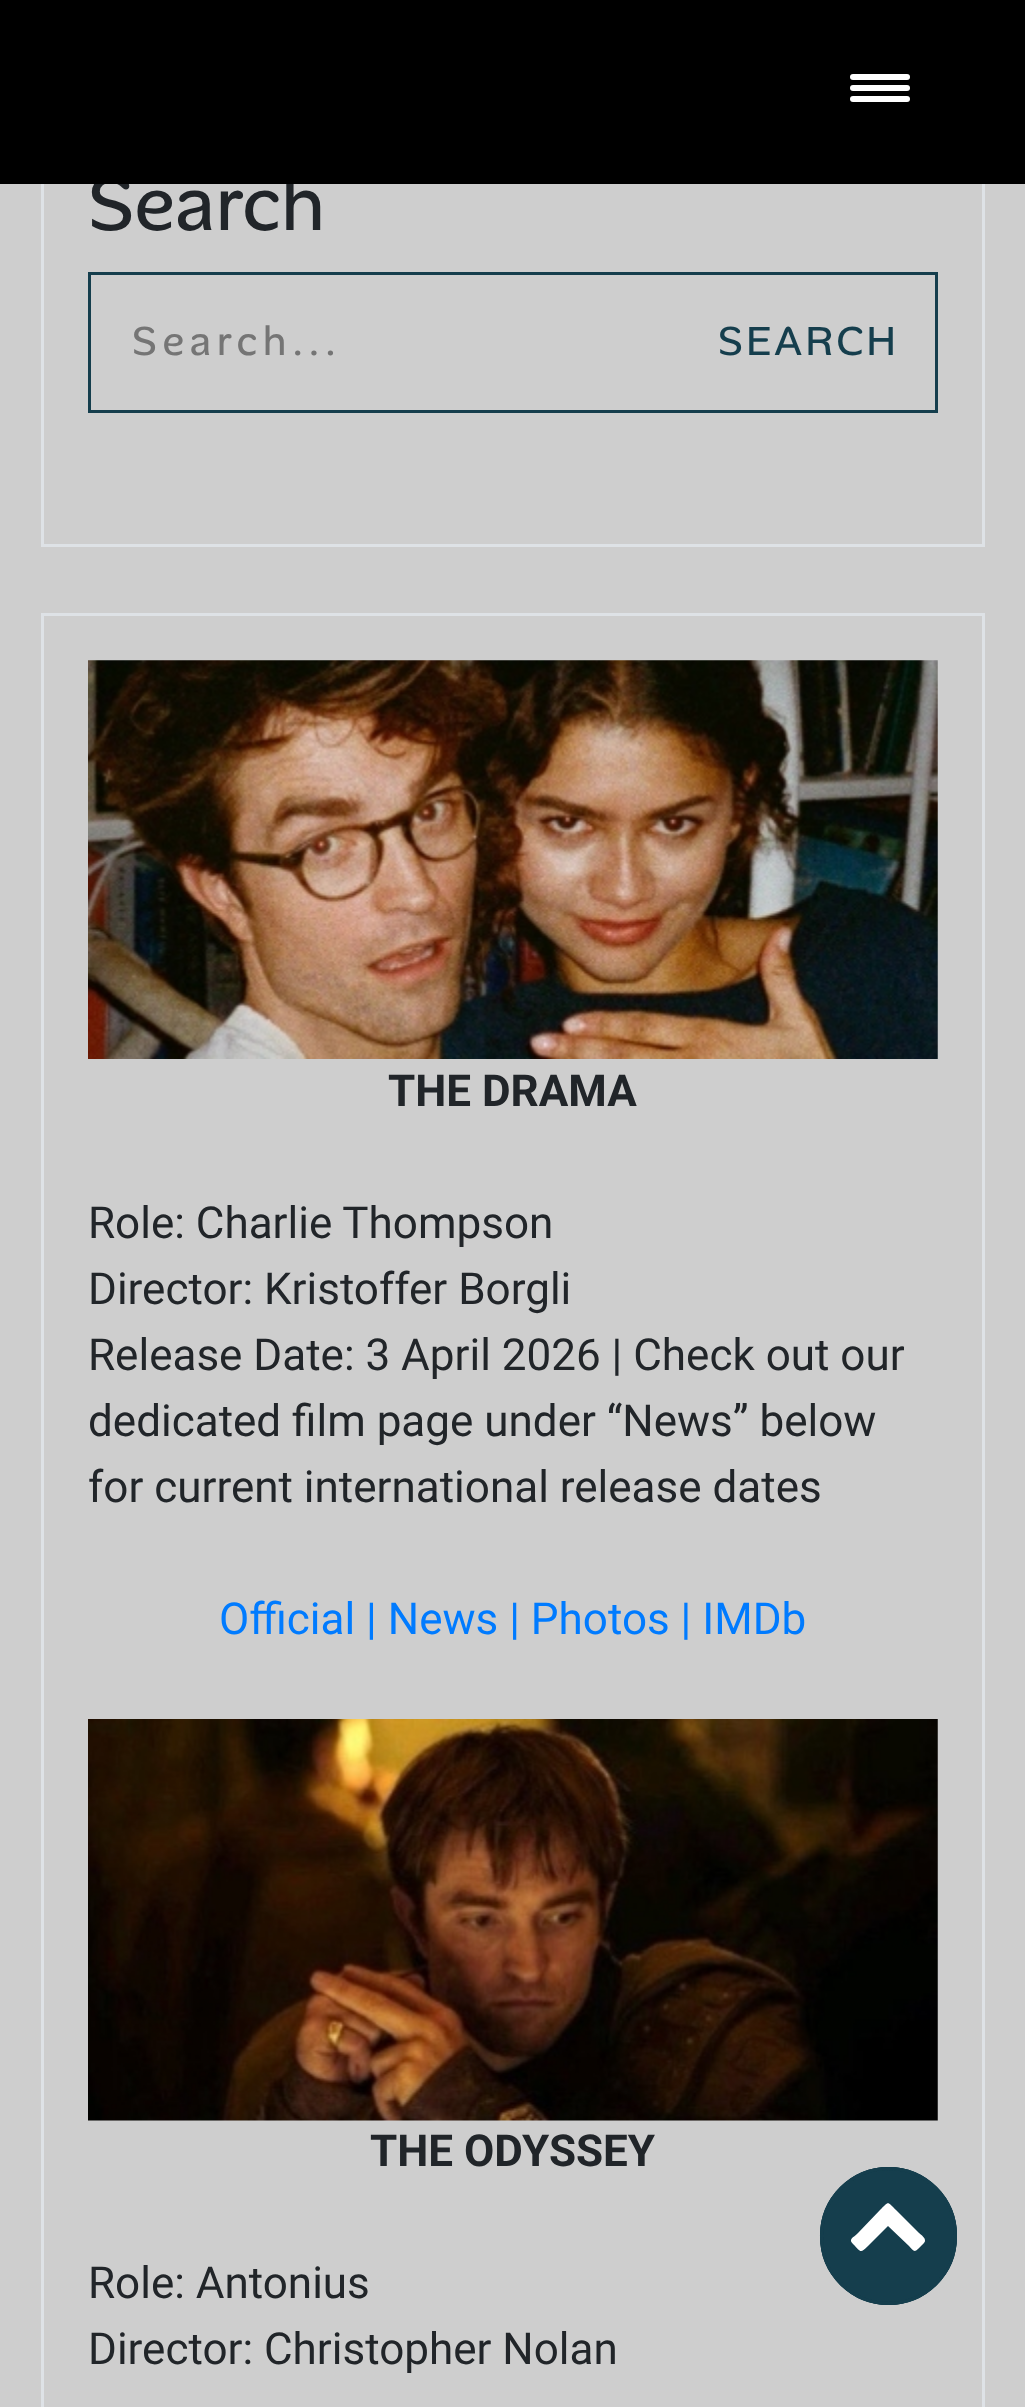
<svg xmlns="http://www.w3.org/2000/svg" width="1025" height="2407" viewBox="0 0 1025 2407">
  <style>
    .t1 { font: 77px Alan Sans; fill: #212529; }
    .t2 { font: 41.25px Alan Sans; letter-spacing: 5.5px; fill: #757575; }
    .t3 { font: 41.25px Alan Sans; letter-spacing: 2.75px; fill: #153e4d; }
    .t4 { font: bold 44px Roboto; fill: #212529; }
    .t5 { font: 44px Roboto; fill: #212529; }
    .t6 { font: 44px Roboto; fill: #007bff; }
  </style>
  <rect width="100%" height="100%" fill="#cecece"/>
  <rect x="42.5" y="114.5" width="941" height="431" fill="none" stroke="#dee2e6" stroke-width="3"/>
  <text x="88" y="230" class="t1">Search</text>
  <rect x="0" y="0" width="1025" height="184" fill="#000"/>
  <rect x="850" y="74" width="60" height="6" rx="3" fill="#fff"/>
  <rect x="850" y="85" width="60" height="6" rx="3" fill="#fff"/>
  <rect x="850" y="96" width="60" height="6" rx="3" fill="#fff"/>
  <rect x="89.5" y="273.5" width="847" height="138" fill="none" stroke="#153e4d" stroke-width="3"/>
  <text x="132" y="355" class="t2">Search...</text>
  <text x="718" y="355" class="t3">SEARCH</text>
  <rect x="42.5" y="614.5" width="941" height="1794" fill="none" stroke="#dee2e6" stroke-width="3"/>
  <image x="88" y="660" width="850" height="399" href="images/1.png"/>
  <text x="388" y="1106" class="t4">THE DRAMA</text>
  <text x="88" y="1238" class="t5">Role: Charlie Thompson</text>
  <text x="88" y="1304" class="t5">Director: Kristoffer Borgli</text>
  <text x="88" y="1370" class="t5">Release Date: 3 April 2026 | Check out our</text>
  <text x="88" y="1436" class="t5">dedicated film page under “News” below</text>
  <text x="88" y="1502" class="t5">for current international release dates</text>
  <text x="219" y="1634" class="t6">Official | News | Photos | IMDb</text>
  <image x="88" y="1719" width="850" height="402" href="images/2.png"/>
  <text x="370" y="2166" class="t4">THE ODYSSEY</text>
  <text x="88" y="2298" class="t5">Role: Antonius</text>
  <text x="88" y="2364" class="t5">Director: Christopher Nolan</text>
  <rect x="820" y="2167" width="137" height="138" rx="68.5" fill="#153e4d"/>
  <path d="M924 2243L918 2249C914 2253 913 2250 909 2246L888 2226L868 2246C860 2254 861 2252 853 2244C848 2239 853 2238 858 2233L880 2210C889 2201 887 2201 896 2210L919 2233C920 2234 928 2239 924 2243Z" fill="#fff"/>
  <rect x="821.5" y="2168.5" width="134" height="135" rx="67" fill="none" stroke="#153e4d" stroke-width="3"/>
  <rect x="821.5" y="2168.5" width="134" height="135" rx="67" fill="none" stroke="#153e4d" stroke-width="3"/>
</svg>
